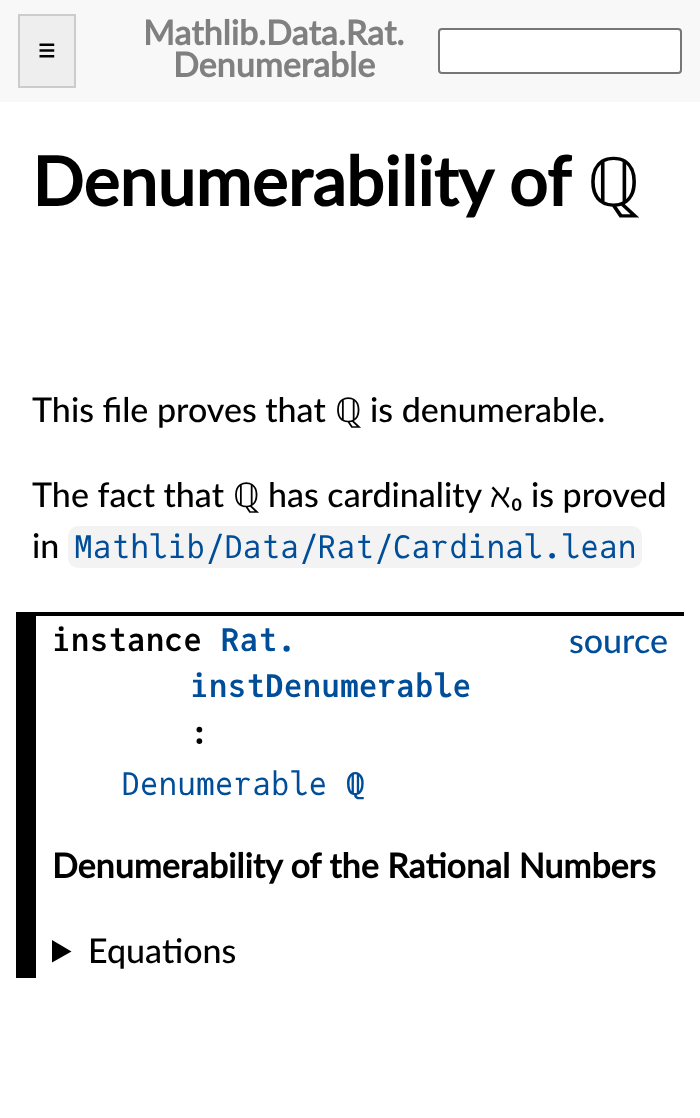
<svg xmlns="http://www.w3.org/2000/svg" width="700" height="1118" viewBox="0 0 700 1118">
  <style>
    .t1 { font: 500 34px Lato; fill: #000; }
    .t2 { font: bold 34px Lato; fill: #808080; }
    .t3 { font: bold 68px Lato; fill: #000; }
    .t4 { font: bold 68px Noto Sans; fill: #000; }
    .t5 { font: 34px Noto Sans; fill: #000; }
    .t6 { font: 31.25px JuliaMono; fill: #004d99; }
    .t7 { font: bold 31.25px JuliaMono; fill: #000; }
    .t8 { font: bold 31.25px JuliaMono; fill: #004d99; }
    .t9 { font: 31.25px JuliaMono; fill: #000; }
    .t10 { font: 500 34px Lato; fill: #004d99; }
    .t11 { font: bold 34px Lato; fill: #000; }
  </style>
  <rect width="100%" height="100%" fill="#fff"/>
  <rect x="0" y="0" width="700" height="102" fill="#f8f8f8"/>
  <rect x="19" y="15" width="56" height="72" fill="#eee" stroke="#ccc" stroke-width="2"/>
  <text x="37" y="62" class="t1">≡</text>
  <text x="143" y="45" class="t2">Mathlib.Data.Rat.</text>
  <text x="173" y="77" class="t2">Denumerable</text>
  <rect x="439" y="29" width="242" height="44" rx="3" fill="#fff" stroke="#767676" stroke-width="2"/>
  <text x="32" y="206" class="t3">Denumerability of</text>
  <text x="587" y="206" class="t4">ℚ</text>
  <text x="32" y="422" class="t1">This file proves that</text>
  <text x="335" y="422" class="t5">ℚ</text>
  <text x="370" y="422" class="t1">is denumerable.</text>
  <text x="32" y="507" class="t1">The fact that</text>
  <text x="233" y="507" class="t5">ℚ</text>
  <text x="268" y="507" class="t1">has cardinality</text>
  <text x="490" y="507" class="t5">ℵ</text>
  <text x="511" y="507" class="t1">₀ is proved</text>
  <text x="32" y="558" class="t1">in</text>
  <rect x="68" y="526" width="574" height="42" rx="10" fill="#f3f3f3"/>
  <text x="74" y="558" class="t6">Mathlib/Data/Rat/Cardinal.lean</text>
  <rect x="36" y="612" width="648" height="4" fill="#000"/>
  <rect x="16" y="612" width="20" height="366" fill="#000"/>
  <text x="52" y="651" class="t7">instance</text>
  <text x="221" y="651" class="t8">Rat.</text>
  <text x="190" y="697" class="t8">instDenumerable</text>
  <text x="190" y="744" class="t9">:</text>
  <text x="121" y="795" class="t6">Denumerable ℚ</text>
  <text x="569" y="653" class="t10">source</text>
  <text x="52" y="878" class="t11">Denumerability of the Rational Numbers</text>
  <path d="M52 940L71.5 951.5L52 962.5Z" fill="#000"/>
  <text x="88" y="963" class="t1">Equations</text>
</svg>
